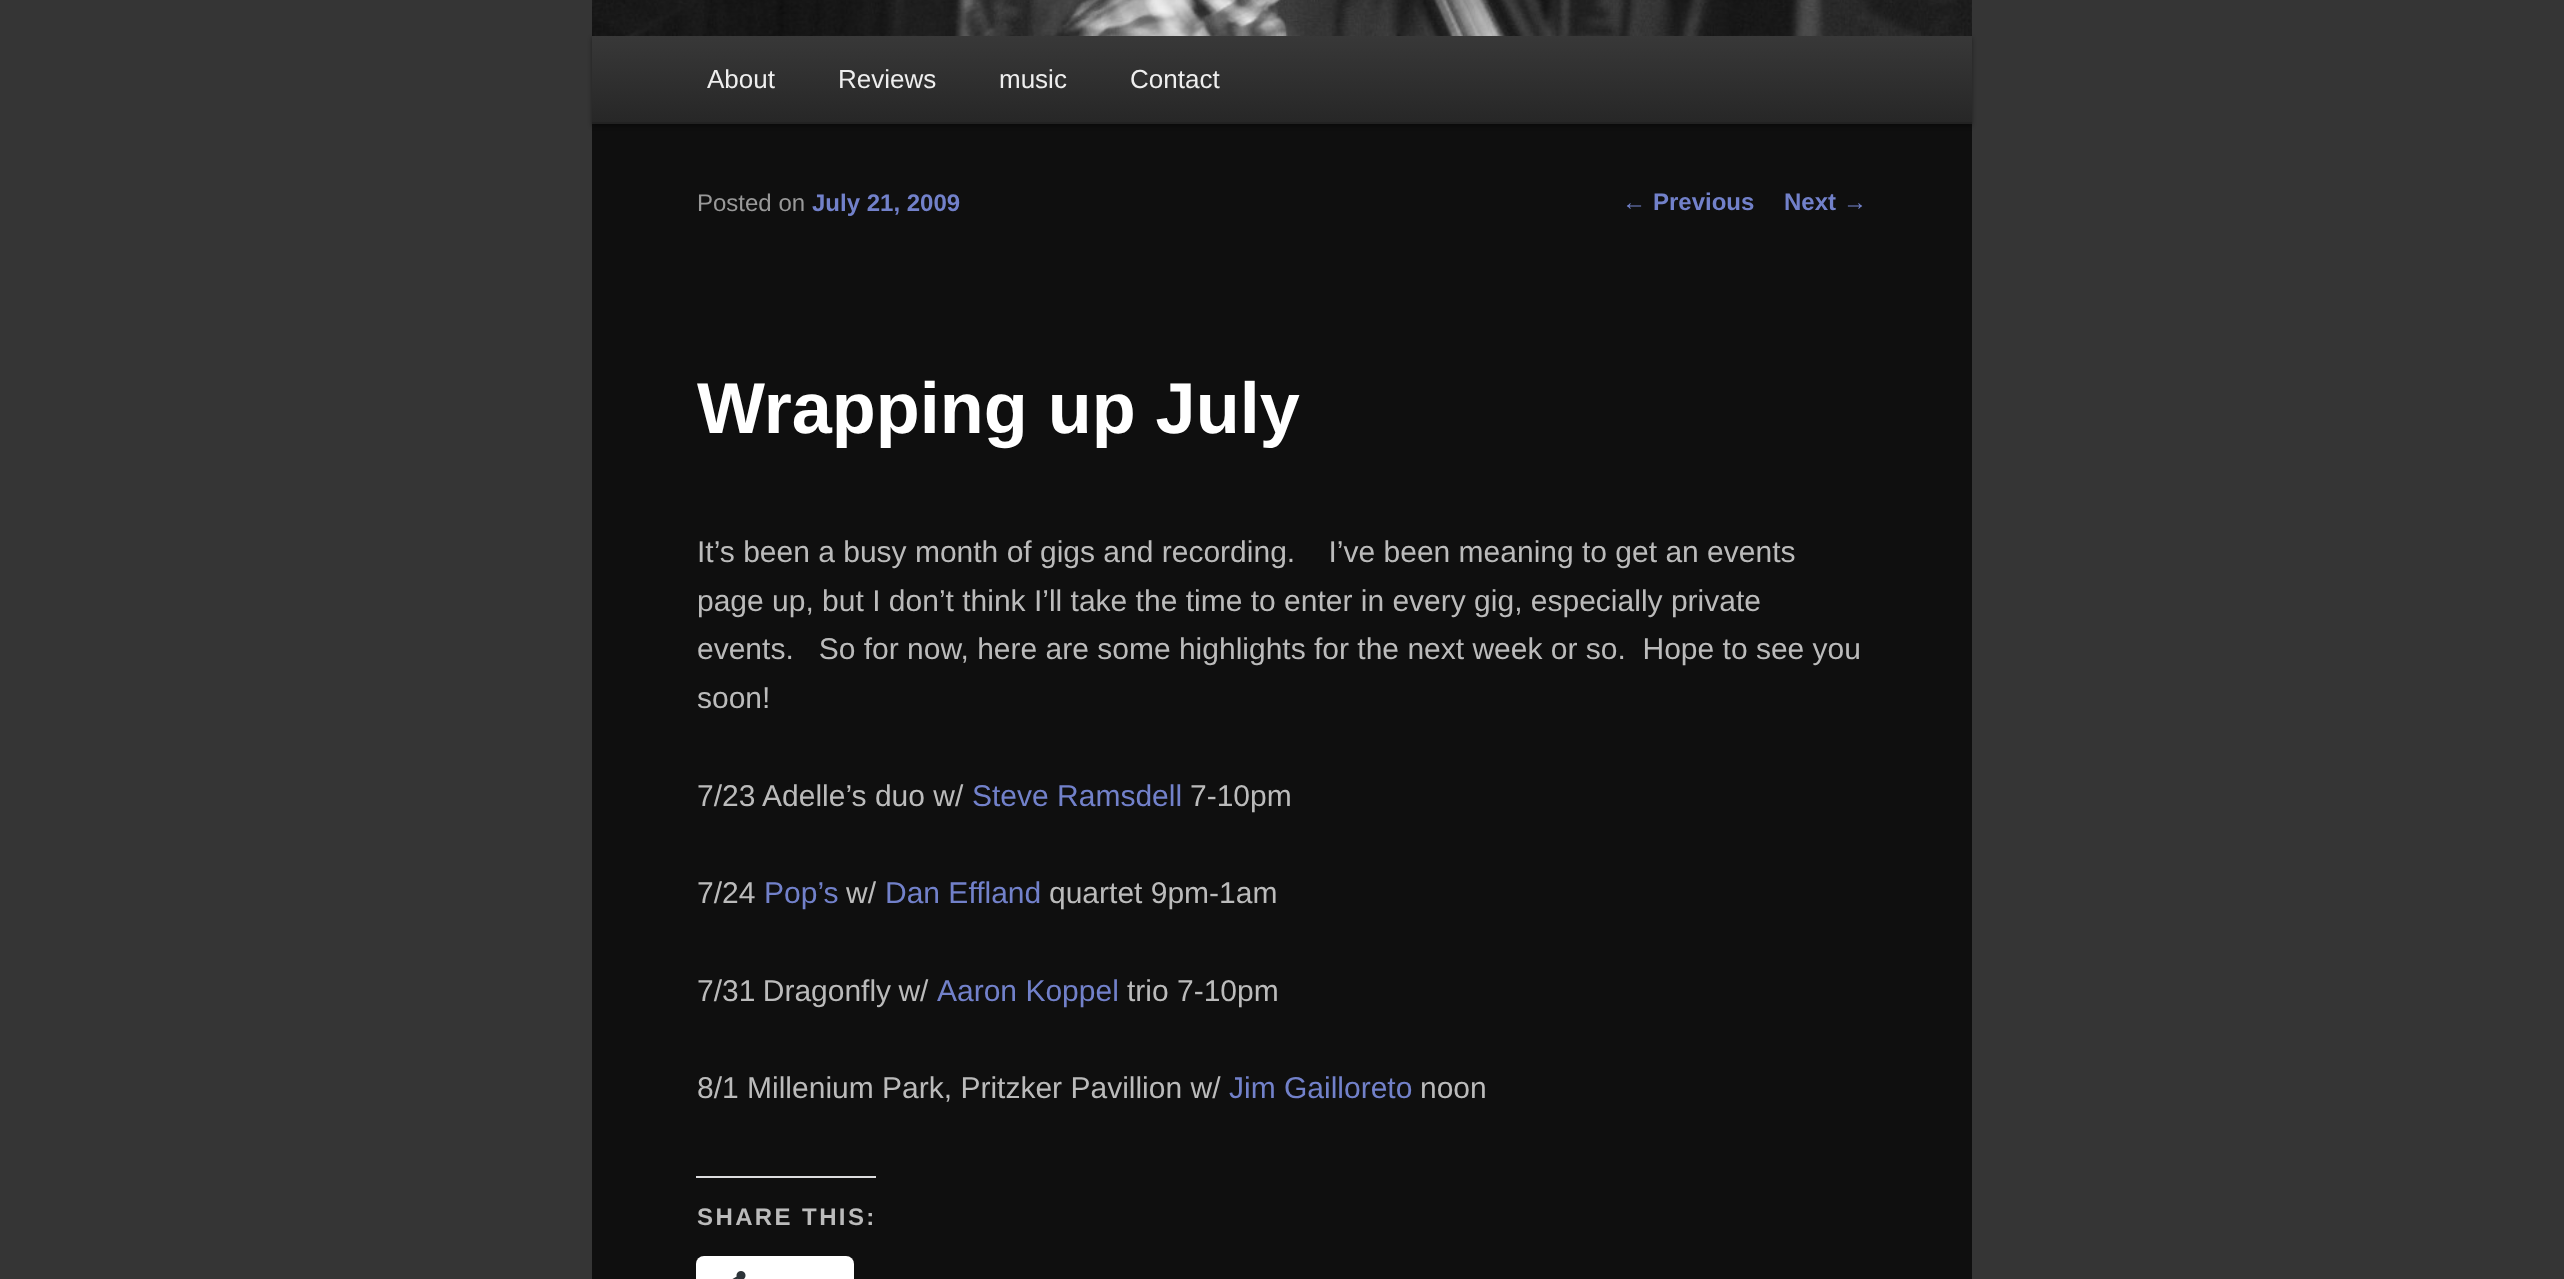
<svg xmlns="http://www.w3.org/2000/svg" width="2564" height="1279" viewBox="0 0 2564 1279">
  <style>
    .t1 { font: 26px Liberation Sans; fill: #eee; }
    .t2 { font: 24px Liberation Sans; fill: #7281ca; }
    .t3 { font: bold 24px Liberation Sans; fill: #7281ca; }
    .t4 { font: 24px Liberation Sans; fill: #999; }
    .t5 { font: bold 72px Liberation Sans; fill: #fff; }
    .t6 { font: 30px Liberation Sans; fill: #bbb; }
    .t7 { font: 30px Liberation Sans; fill: #7281ca; }
    .t8 { font: bold 24px Liberation Sans; letter-spacing: 2.4px; fill: #bbb; }
  </style>
  <defs>
    <linearGradient id="g1" gradientUnits="userSpaceOnUse" x1="1282" y1="36" x2="1282" y2="122"><stop offset="0" stop-color="#383838"/><stop offset="1" stop-color="#272727"/></linearGradient>
  </defs>
  <rect width="100%" height="100%" fill="#353535"/>
  <rect x="592" y="124" width="1380" height="1155" fill="#0f0f0f"/>
  <rect x="592" y="38" width="1380" height="88" fill="#00000066" filter="blur(2px)"/>
  <image x="592" y="0" width="1380" height="36" href="images/1.png"/>
  <rect x="592" y="36" width="1380" height="86" fill="url(#g1)"/>
  <rect x="592" y="122" width="1380" height="2" fill="#222"/>
  <text x="707" y="88" class="t1">About</text>
  <text x="838" y="88" class="t1">Reviews</text>
  <text x="999" y="88" class="t1">music</text>
  <text x="1130" y="88" class="t1">Contact</text>
  <text x="1622" y="210" class="t2">←</text>
  <text x="1653" y="210" class="t3">Previous</text>
  <text x="1784" y="210" class="t3">Next</text>
  <text x="1843" y="210" class="t2">→</text>
  <text x="697" y="211" class="t4">Posted on</text>
  <text x="812" y="211" class="t3">July 21, 2009</text>
  <text x="697" y="433" class="t5">Wrapping up July</text>
  <text x="697" y="562" class="t6" xml:space="preserve">It’s been a busy month of gigs and recording.    I’ve been meaning to get an events</text>
  <text x="697" y="611" class="t6">page up, but I don’t think I’ll take the time to enter in every gig, especially private</text>
  <text x="697" y="659" class="t6" xml:space="preserve">events.   So for now, here are some highlights for the next week or so.  Hope to see you</text>
  <text x="697" y="708" class="t6">soon!</text>
  <text x="697" y="806" class="t6">7/23 Adelle’s duo w/</text>
  <text x="972" y="806" class="t7">Steve Ramsdell</text>
  <text x="1190" y="806" class="t6">7-10pm</text>
  <text x="697" y="903" class="t6">7/24</text>
  <text x="764" y="903" class="t7">Pop’s</text>
  <text x="846" y="903" class="t6">w/</text>
  <text x="885" y="903" class="t7">Dan Effland</text>
  <text x="1049" y="903" class="t6">quartet 9pm-1am</text>
  <text x="697" y="1001" word-spacing="-1" class="t6">7/31 Dragonfly w/</text>
  <text x="937" y="1001" class="t7">Aaron Koppel</text>
  <text x="1127" y="1001" class="t6">trio 7-10pm</text>
  <text x="697" y="1098" class="t6">8/1 Millenium Park, Pritzker Pavillion w/</text>
  <text x="1229" y="1098" class="t7">Jim Gailloreto</text>
  <text x="1420" y="1098" class="t6">noon</text>
  <rect x="696" y="1176" width="180" height="2" fill="#dcdcde"/>
  <text x="697" y="1225" class="t8">SHARE THIS:</text>
  <rect x="696" y="1256" width="158" height="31" rx="8" fill="#fff"/>
  <image x="732" y="1271" width="14" height="8" href="images/2.png"/>
</svg>
